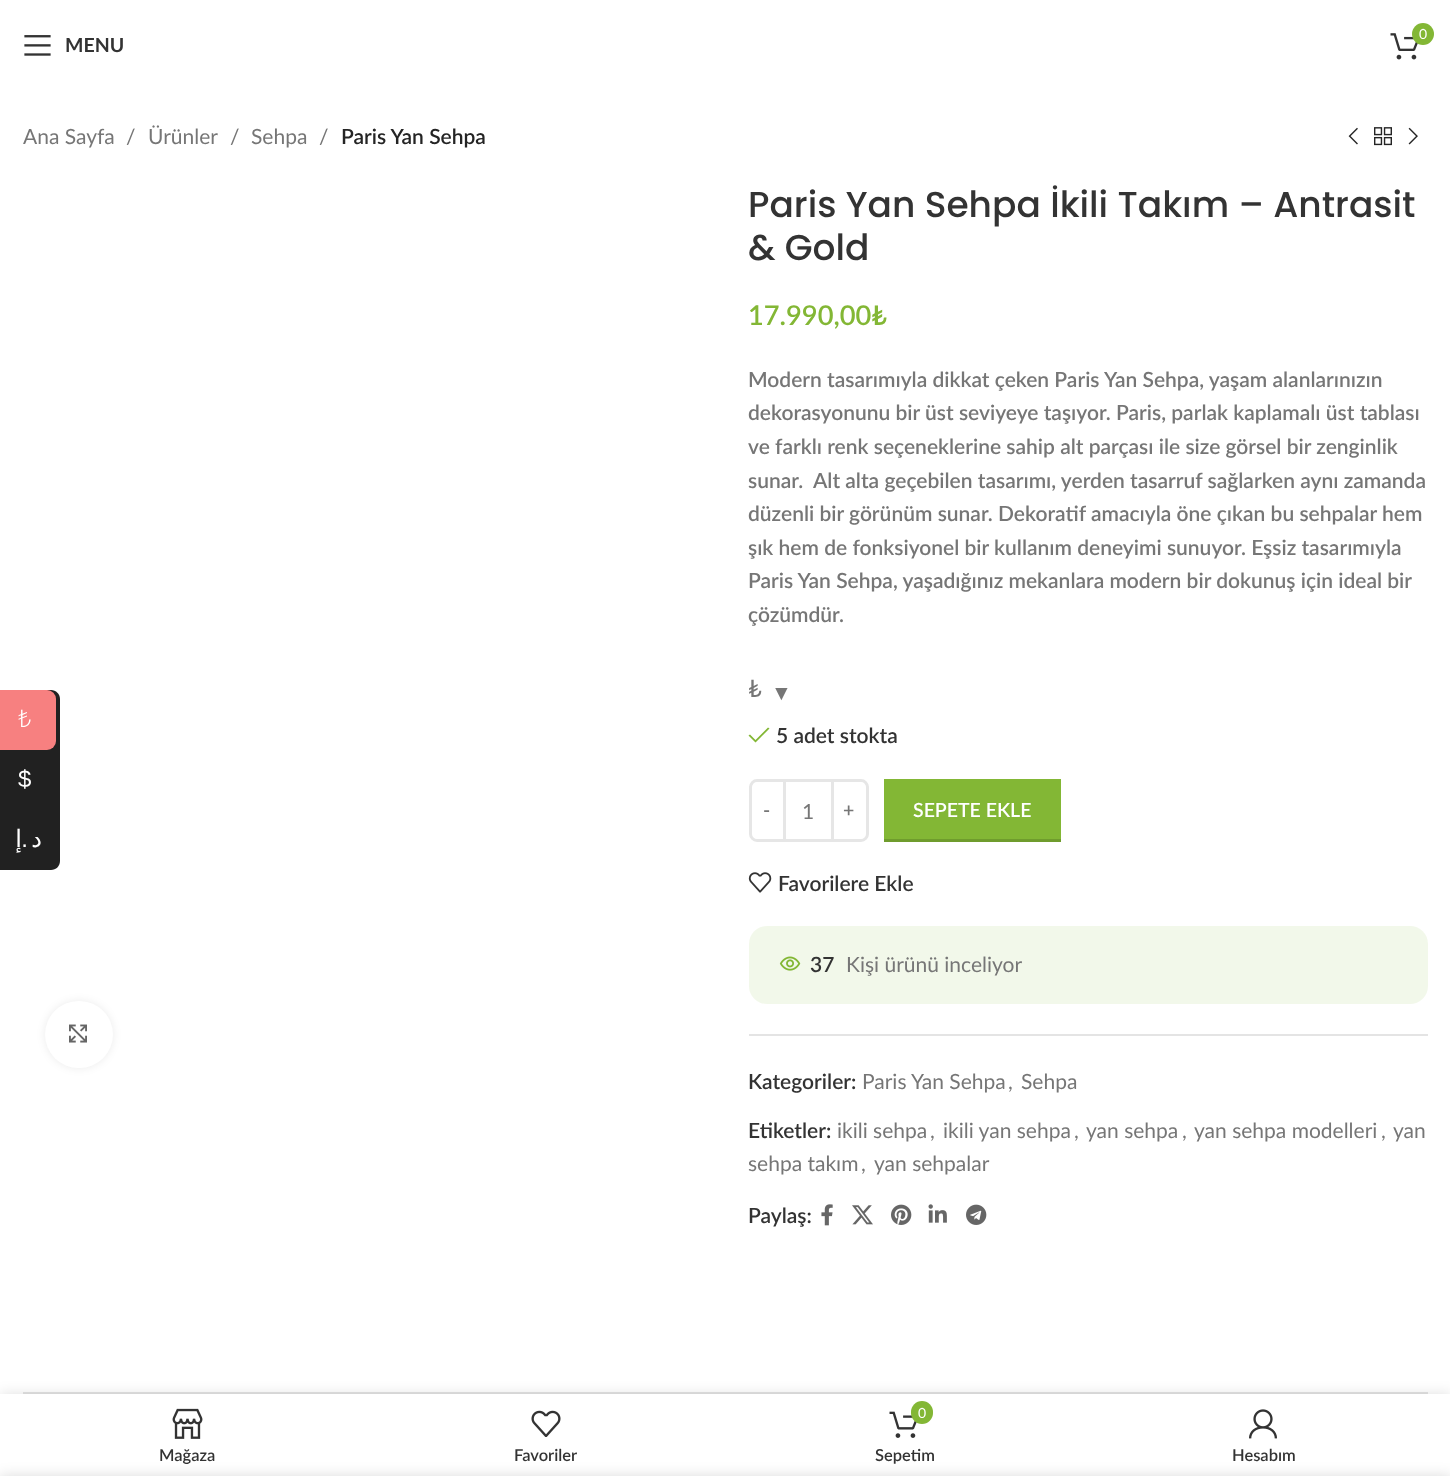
<svg xmlns="http://www.w3.org/2000/svg" width="1450" height="1476" viewBox="0 0 1450 1476">
  <style>
    .t1 { font: 14px Lato; fill: #fff; }
    .t2 { font: bold 19.5px Lato; fill: #333; }
    .t3 { font: 21px Lato; fill: #767676; }
    .t4 { font: 600 21px Lato; fill: #242424; }
    .t5 { font: 500 36px Poppins; fill: #333; }
    .t6 { font: 600 27.25px Lato; fill: #83b735; }
    .t7 { font: 600 21px Lato; fill: #767676; }
    .t8 { font: 24px Lato; fill: #767676; }
    .t9 { font: 21px Liberation Sans; fill: #767676; }
    .t10 { font: 600 21px Lato; fill: #333; }
    .t11 { font: 600 19.5px Lato; fill: #767676; }
    .t12 { font: 600 19.5px Lato; fill: #fff; }
    .t13 { font: 300 24px Noto Sans; letter-spacing: 2px; fill: #fff; }
    .t14 { font: 24px Liberation Sans; letter-spacing: 2px; fill: #fff; }
    .t15 { font: 24px DejaVu Sans; letter-spacing: 2px; direction: rtl; fill: #fff; }
    .t16 { font: 24px Liberation Sans; letter-spacing: 2px; direction: rtl; fill: #fff; }
    .t17 { font: 600 16.5px Lato; fill: #333; }
  </style>
  <rect width="100%" height="100%" fill="#fff"/>
  <image x="1390" y="33" width="28" height="27" href="images/1.png"/>
  <circle cx="1423" cy="34" r="11" fill="#83b735"/>
  <text x="1419" y="39" class="t1">0</text>
  <image x="24" y="35" width="27" height="21" href="images/2.png"/>
  <text x="65" y="52" class="t2">MENU</text>
  <text x="23" y="144" class="t3">Ana Sayfa</text>
  <text x="126" y="144" class="t3">/</text>
  <text x="148" y="144" class="t3">Ürünler</text>
  <text x="230" y="144" class="t3">/</text>
  <text x="251" y="144" class="t3">Sehpa</text>
  <text x="319" y="144" class="t3">/</text>
  <text x="341" y="144" class="t4">Paris Yan Sehpa</text>
  <image x="1348" y="127" width="10" height="18" href="images/3.png"/>
  <image x="1374" y="127" width="18" height="19" href="images/4.png"/>
  <image x="1408" y="127" width="10" height="18" href="images/5.png"/>
  <rect x="45" y="1001" width="68" height="67" rx="33.5" fill="#00000014" filter="blur(4px)"/>
  <rect x="45" y="1001" width="68" height="67" rx="33.5" fill="#fff"/>
  <image x="69" y="1024" width="18" height="19" href="images/6.png"/>
  <text x="748" y="217" class="t5">Paris Yan Sehpa İkili Takım – Antrasit</text>
  <text x="748" y="260" class="t5">&amp; Gold</text>
  <text x="748" y="325" class="t6">17.990,00₺</text>
  <text x="748" y="387" class="t7">Modern tasarımıyla dikkat çeken Paris Yan Sehpa, yaşam alanlarınızın</text>
  <text x="748" y="420" class="t7">dekorasyonunu bir üst seviyeye taşıyor. Paris, parlak kaplamalı üst tablası</text>
  <text x="748" y="454" class="t7">ve farklı renk seçeneklerine sahip alt parçası ile size görsel bir zenginlik</text>
  <text x="748" y="488" class="t7" xml:space="preserve">sunar.  Alt alta geçebilen tasarımı, yerden tasarruf sağlarken aynı zamanda</text>
  <text x="748" y="521" class="t7">düzenli bir görünüm sunar. Dekoratif amacıyla öne çıkan bu sehpalar hem</text>
  <text x="748" y="555" class="t7">şık hem de fonksiyonel bir kullanım deneyimi sunuyor. Eşsiz tasarımıyla</text>
  <text x="748" y="588" class="t7">Paris Yan Sehpa, yaşadığınız mekanlara modern bir dokunuş için ideal bir</text>
  <text x="748" y="622" class="t7">çözümdür.</text>
  <text x="748" y="697" class="t8">₺</text>
  <text x="771" y="700" class="t9">▼</text>
  <path d="M769.5 728.5L768 727.5L755.5 740L750 734.5L748.5 735.5L755.5 742.5Z" fill="#83b735"/>
  <text x="776" y="743" class="t10">5 adet stokta</text>
  <path d="M757 780.5H784.5V840.5H757C753.5 840.5 750.5 837.5 750.5 834V787C750.5 783.5 753.5 780.5 757 780.5Z" fill="none" stroke="#e6e6e6" stroke-width="3"/>
  <text x="763" y="817" class="t11">-</text>
  <rect x="786" y="779" width="45" height="3" fill="#e6e6e6"/>
  <rect x="786" y="839" width="45" height="3" fill="#e6e6e6"/>
  <text x="802" y="819" class="t3">1</text>
  <path d="M832.5 780.5H861C864.5 780.5 867.5 783.5 867.5 787V834C867.5 837.5 864.5 840.5 861 840.5H832.5Z" fill="none" stroke="#e6e6e6" stroke-width="3"/>
  <text x="843" y="817" class="t11">+</text>
  <rect x="884" y="779" width="177" height="60" fill="#83b735"/>
  <rect x="884" y="839" width="177" height="3" fill="#6f9c2d"/>
  <text x="913" y="817" class="t12">SEPETE EKLE</text>
  <image x="748" y="872" width="24" height="21" href="images/7.png"/>
  <text x="778" y="891" class="t10">Favorilere Ekle</text>
  <image x="779" y="956" width="22" height="15" href="images/8.png"/>
  <rect x="749" y="926" width="679" height="78" rx="18" fill="#83b7351a"/>
  <text x="810" y="972" class="t10">37</text>
  <text x="846" y="972" class="t3">Kişi ürünü inceliyor</text>
  <rect x="749" y="1034" width="679" height="2" fill="#e4e4e4"/>
  <text x="748" y="1089" class="t10">Kategoriler:</text>
  <text x="862" y="1089" class="t3">Paris Yan Sehpa</text>
  <text x="1008" y="1089" class="t3">,</text>
  <text x="1021" y="1089" class="t3">Sehpa</text>
  <text x="748" y="1138" class="t10">Etiketler:</text>
  <text x="837" y="1138" class="t3">ikili sehpa</text>
  <text x="930" y="1138" class="t3">,</text>
  <text x="943" y="1138" class="t3">ikili yan sehpa</text>
  <text x="1074" y="1138" class="t3">,</text>
  <text x="1086" y="1138" class="t3">yan sehpa</text>
  <text x="1182" y="1138" class="t3">,</text>
  <text x="1194" y="1138" class="t3">yan sehpa modelleri</text>
  <text x="1381" y="1138" class="t3">,</text>
  <text x="1393" y="1138" class="t3">yan</text>
  <text x="748" y="1171" class="t3">sehpa takım</text>
  <text x="861" y="1171" class="t3">,</text>
  <text x="874" y="1171" class="t3">yan sehpalar</text>
  <text x="748" y="1223" class="t10">Paylaş:</text>
  <image x="821" y="1204" width="12" height="22" href="images/9.png"/>
  <image x="852" y="1205" width="21" height="20" href="images/10.png"/>
  <image x="891" y="1204" width="21" height="21" href="images/11.png"/>
  <image x="928" y="1204" width="19" height="19" href="images/12.png"/>
  <image x="966" y="1204" width="21" height="21" href="images/13.png"/>
  <rect x="23" y="1392" width="1405" height="2" fill="#e4e4e4"/>
  <path d="M0 690H51C56 690 60 694 60 699V750H-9V699C-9 694-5 690 0 690Z" fill="#212121"/>
  <rect x="-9" y="690" width="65" height="60" rx="9" fill="#f78080"/>
  <text x="18" y="727" class="t13">₺</text>
  <rect x="0" y="750" width="60" height="60" fill="#212121"/>
  <text x="18" y="787" class="t14">$</text>
  <path d="M-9 810H60V861C60 866 56 870 51 870H0C-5 870-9 866-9 861Z" fill="#212121"/>
  <text x="22" y="847" class="t15">إ</text>
  <text x="30" y="847" class="t16">.</text>
  <text x="42" y="847" class="t15">د</text>
  <rect x="0" y="1394" width="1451" height="82" fill="#0000001f" filter="blur(7px)"/>
  <rect x="0" y="1394" width="1450" height="82" fill="#fff"/>
  <image x="172" y="1408" width="31" height="31" href="images/14.png"/>
  <text x="159" y="1461" class="t17">Mağaza</text>
  <image x="531" y="1410" width="30" height="27" href="images/15.png"/>
  <text x="514" y="1461" class="t17">Favoriler</text>
  <image x="889" y="1411" width="28" height="27" href="images/16.png"/>
  <rect x="911" y="1401" width="22" height="23" rx="11" fill="#83b735"/>
  <text x="918" y="1418" class="t1">0</text>
  <text x="875" y="1461" class="t17">Sepetim</text>
  <image x="1249" y="1409" width="28" height="30" href="images/17.png"/>
  <text x="1232" y="1461" class="t17">Hesabım</text>
  <rect x="0" y="1476" width="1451" height="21" fill="#00000024" filter="blur(7px)"/>
</svg>
